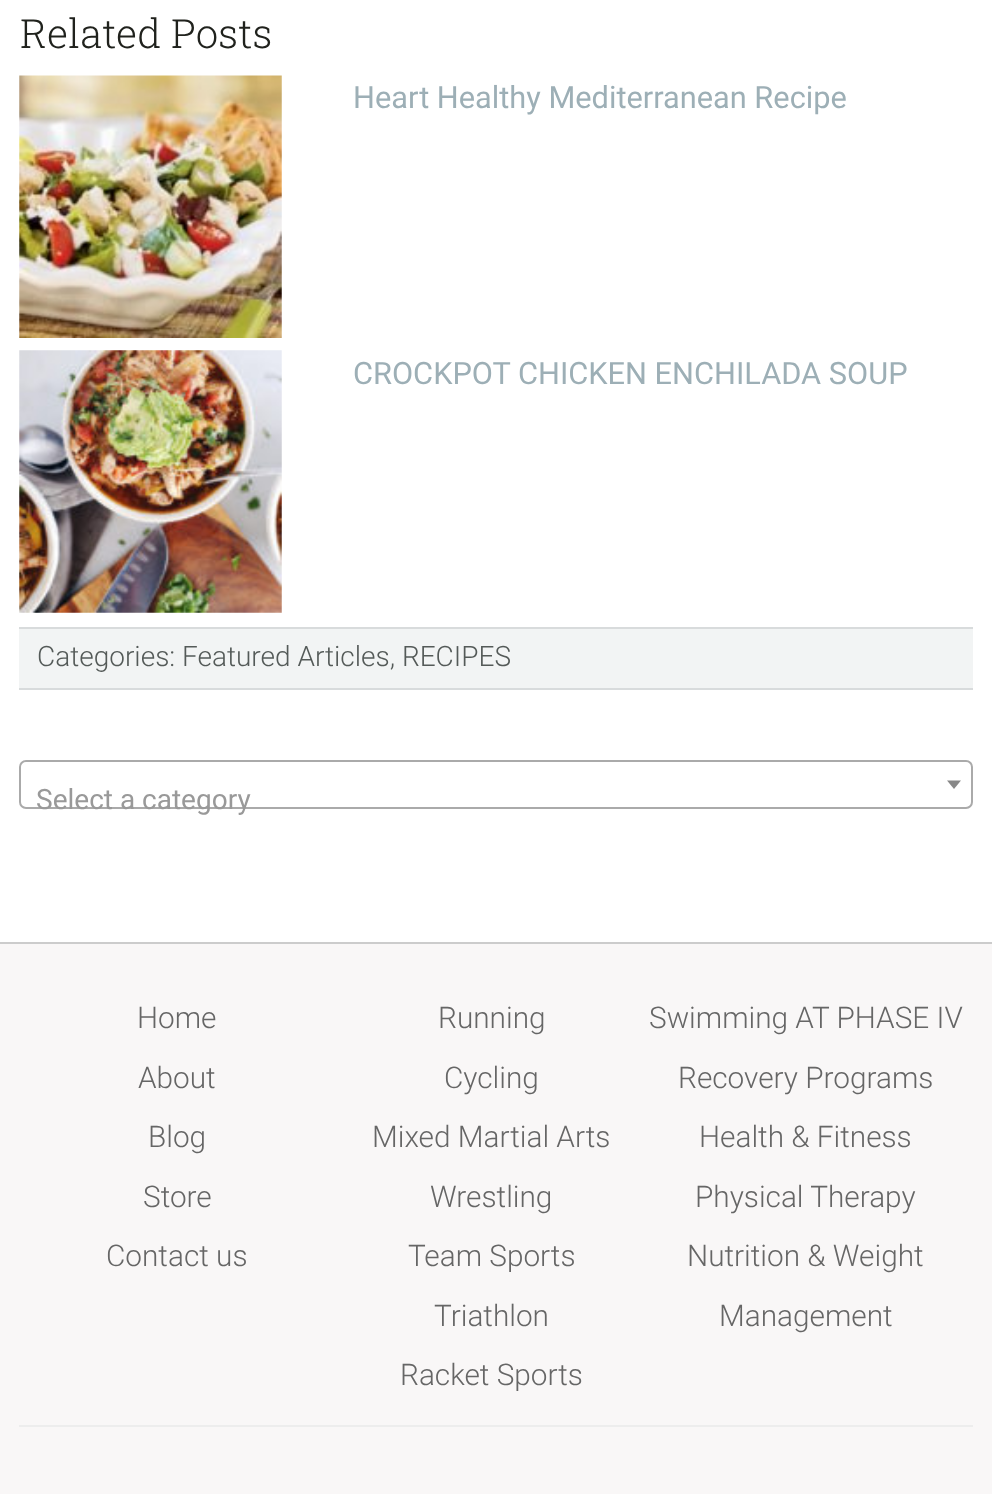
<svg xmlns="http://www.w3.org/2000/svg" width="992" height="1494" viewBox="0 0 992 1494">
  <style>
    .t1 { font: 300 40.25px Roboto Slab; fill: #20221d; }
    .t2 { font: 30.75px Roboto; fill: #9dafb6; }
    .t3 { font: 300 28px Roboto; fill: #545a58; }
    .t4 { font: 28px Roboto; fill: #999; }
    .t5 { font: 300 29.75px Roboto; fill: #666; }
  </style>
  <rect width="100%" height="100%" fill="#fff"/>
  <text x="20" y="48" class="t1">Related Posts</text>
  <image x="19" y="75" width="263" height="263" href="images/1.png"/>
  <text x="353" y="108" class="t2">Heart Healthy Mediterranean Recipe</text>
  <image x="19" y="350" width="263" height="263" href="images/2.png"/>
  <text x="353" y="384" class="t2">CROCKPOT CHICKEN ENCHILADA SOUP</text>
  <rect x="19" y="629" width="954" height="59" fill="#f2f4f4"/>
  <rect x="19" y="627" width="954" height="2" fill="#d8dbdc"/>
  <rect x="19" y="688" width="954" height="2" fill="#d8dbdc"/>
  <text x="37" y="666" class="t3">Categories: Featured Articles, RECIPES</text>
  <rect x="20" y="761" width="952" height="47" rx="6" fill="none" stroke="#aaa" stroke-width="2"/>
  <path d="M947 780.5H961L954 789Z" fill="#888"/>
  <text x="36" y="809" class="t4">Select a category</text>
  <rect x="0" y="944" width="992" height="550" fill="#f9f7f7"/>
  <rect x="0" y="942" width="992" height="2" fill="#ccc"/>
  <text x="137" y="1028" class="t5">Home</text>
  <text x="138" y="1088" class="t5">About</text>
  <text x="148" y="1147" class="t5">Blog</text>
  <text x="143" y="1207" class="t5">Store</text>
  <text x="106" y="1266" class="t5">Contact us</text>
  <text x="438" y="1028" class="t5">Running</text>
  <text x="444" y="1088" class="t5">Cycling</text>
  <text x="372" y="1147" class="t5">Mixed Martial Arts</text>
  <text x="430" y="1207" class="t5">Wrestling</text>
  <text x="408" y="1266" class="t5">Team Sports</text>
  <text x="434" y="1326" class="t5">Triathlon</text>
  <text x="400" y="1385" class="t5">Racket Sports</text>
  <text x="649" y="1028" class="t5">Swimming AT PHASE IV</text>
  <text x="678" y="1088" class="t5">Recovery Programs</text>
  <text x="699" y="1147" class="t5">Health &amp; Fitness</text>
  <text x="695" y="1207" class="t5">Physical Therapy</text>
  <text x="687" y="1266" class="t5">Nutrition &amp; Weight</text>
  <text x="719" y="1326" class="t5">Management</text>
  <rect x="19" y="1425" width="954" height="2" fill="#ededed"/>
</svg>
